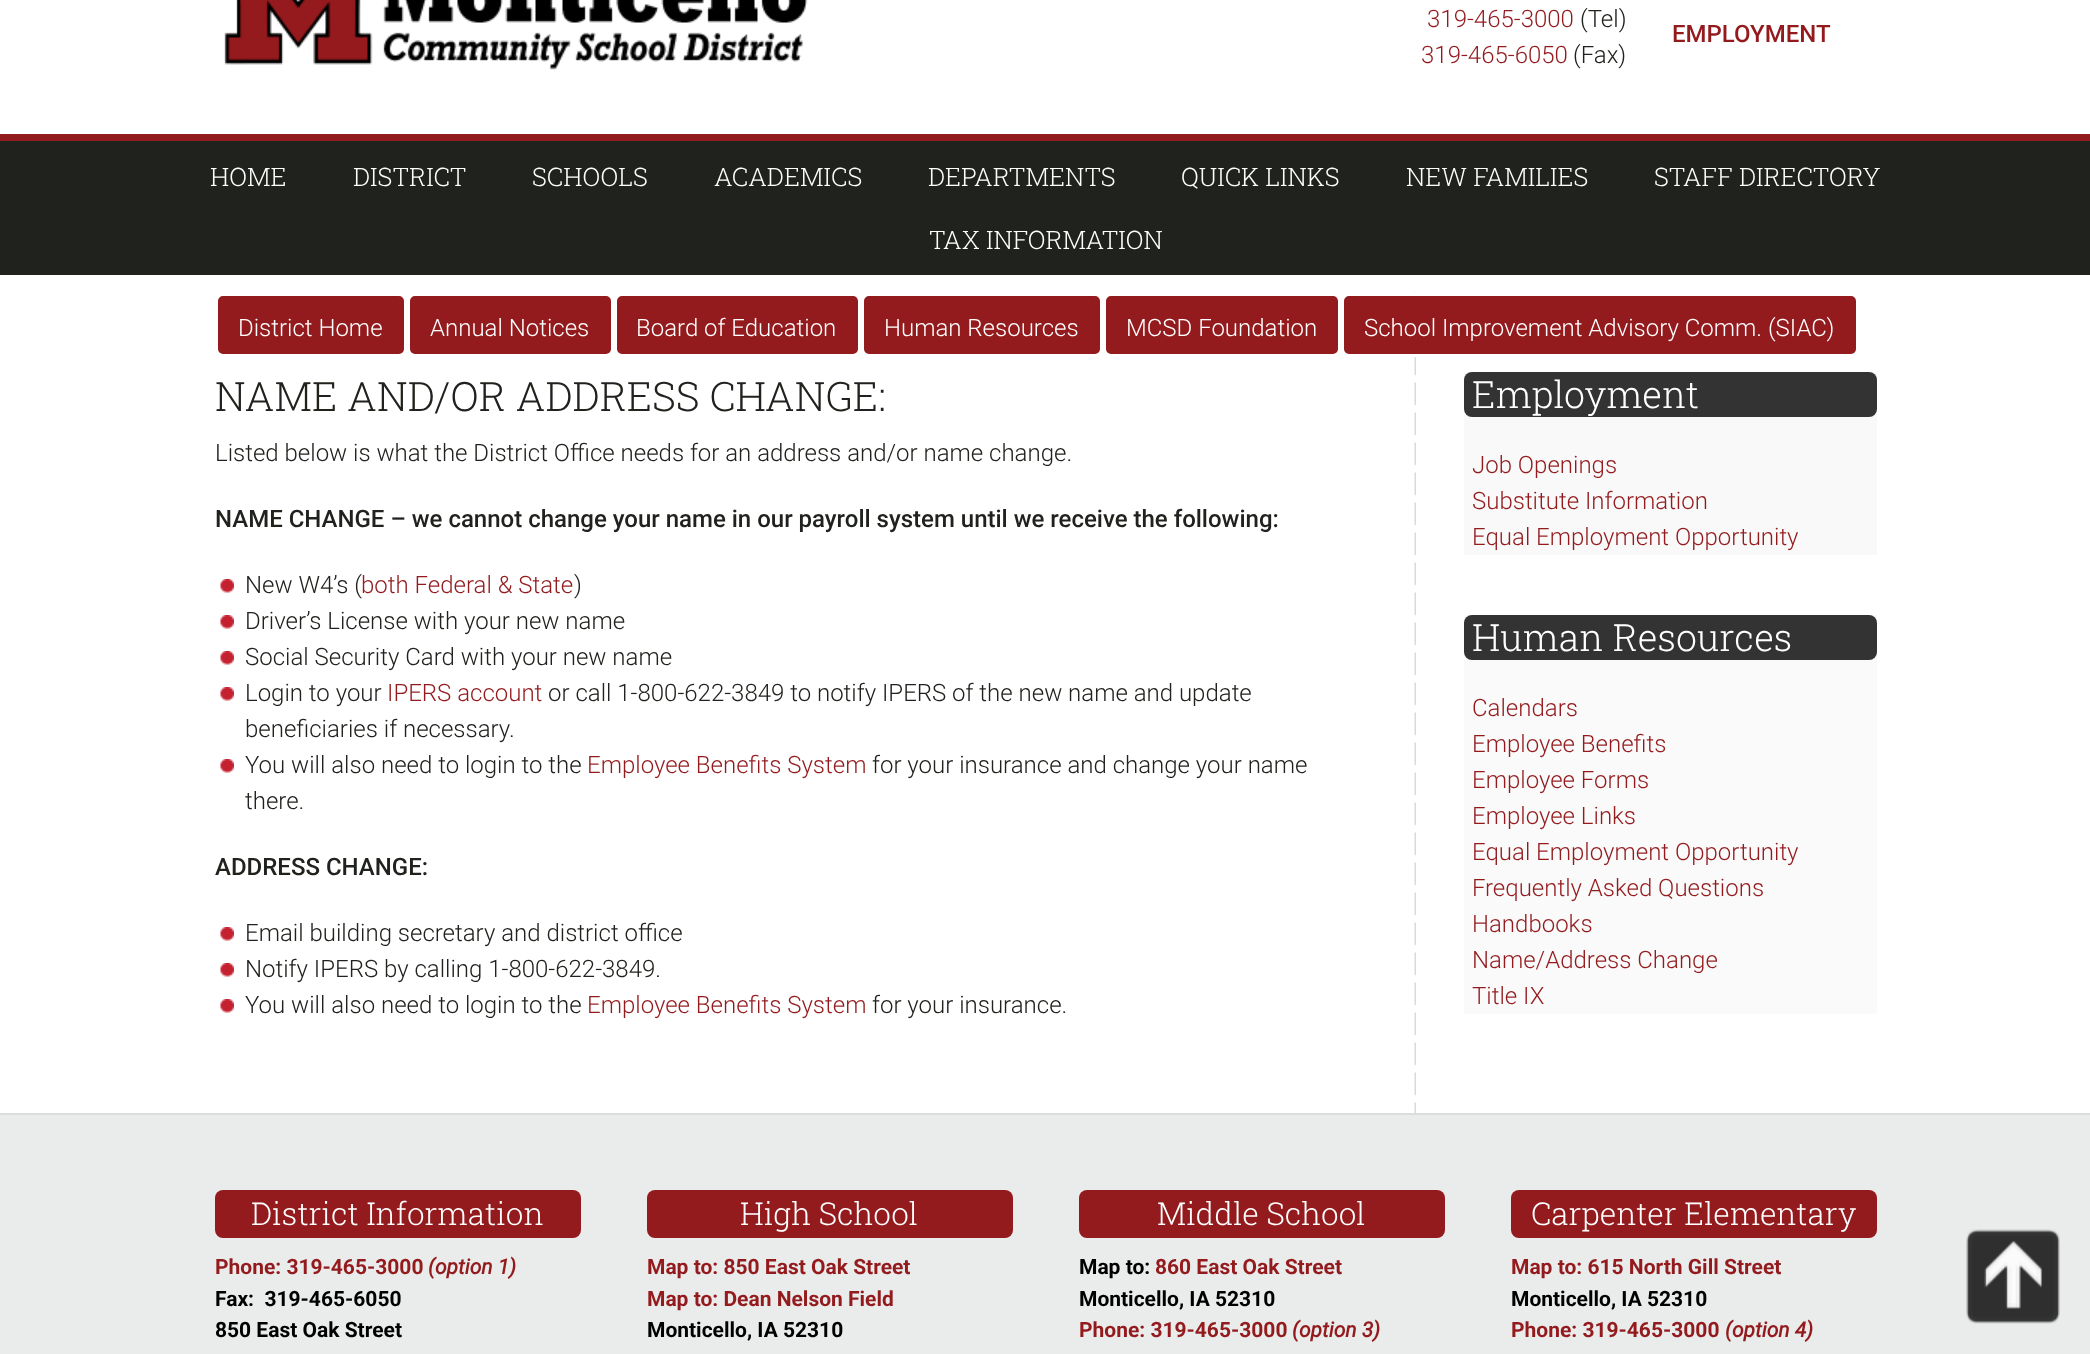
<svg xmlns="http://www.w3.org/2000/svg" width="2090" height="1354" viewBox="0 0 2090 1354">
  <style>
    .t1 { font: 300 24px Roboto; fill: #931b1e; }
    .t2 { font: 300 24px Roboto; fill: #20221d; }
    .t3 { font: 500 24px Roboto; fill: #931b1e; }
    .t4 { font: 300 25.5px Roboto Slab; fill: #fff; }
    .t5 { font: 300 24px Roboto; fill: #fff; }
    .t6 { font: 300 40.5px Roboto Slab; fill: #20221d; }
    .t7 { font: 500 24px Roboto; fill: #20221d; }
    .t8 { font: 300 37.5px Roboto Slab; fill: #fff; }
    .t9 { font: 300 31.5px Roboto Slab; fill: #fff; }
    .t10 { font: bold 21px Roboto; fill: #931b1e; }
    .t11 { font: italic bold 21px Roboto; fill: #931b1e; }
    .t12 { font: bold 21px Roboto; fill: #000; }
  </style>
  <rect width="100%" height="100%" fill="#fff"/>
  <rect x="0" y="134" width="2090" height="7" fill="#931b1e"/>
  <image x="224" y="0" width="584" height="70" href="images/1.png"/>
  <text x="1427" y="27" class="t1">319-465-3000</text>
  <text x="1580" y="27" class="t2">(Tel)</text>
  <text x="1421" y="63" class="t1">319-465-6050</text>
  <text x="1573" y="63" class="t2">(Fax)</text>
  <text x="1672" y="42" class="t3">EMPLOYMENT</text>
  <rect x="0" y="141" width="2090" height="134" fill="#20221d"/>
  <text x="210" y="186" class="t4">HOME</text>
  <text x="353" y="186" class="t4">DISTRICT</text>
  <text x="532" y="186" class="t4">SCHOOLS</text>
  <text x="714" y="186" class="t4">ACADEMICS</text>
  <text x="928" y="186" class="t4">DEPARTMENTS</text>
  <text x="1181" y="186" class="t4">QUICK LINKS</text>
  <text x="1406" y="186" class="t4">NEW FAMILIES</text>
  <text x="1654" y="186" class="t4">STAFF DIRECTORY</text>
  <text x="929" y="249" class="t4">TAX INFORMATION</text>
  <image x="1414" y="292" width="2" height="821" href="images/2.png"/>
  <rect x="216.5" y="294.5" width="189" height="61" rx="6.5" fill="#931b1e" stroke="#fff" stroke-width="3"/>
  <text x="238" y="336" class="t5">District Home</text>
  <rect x="408.5" y="294.5" width="204" height="61" rx="6.5" fill="#931b1e" stroke="#fff" stroke-width="3"/>
  <text x="430" y="336" class="t5">Annual Notices</text>
  <rect x="615.5" y="294.5" width="244" height="61" rx="6.5" fill="#931b1e" stroke="#fff" stroke-width="3"/>
  <text x="636" y="336" class="t5">Board of Education</text>
  <rect x="862.5" y="294.5" width="239" height="61" rx="6.5" fill="#931b1e" stroke="#fff" stroke-width="3"/>
  <text x="884" y="336" class="t5">Human Resources</text>
  <rect x="1104.5" y="294.5" width="235" height="61" rx="6.5" fill="#931b1e" stroke="#fff" stroke-width="3"/>
  <text x="1126" y="336" class="t5">MCSD Foundation</text>
  <rect x="1342.5" y="294.5" width="515" height="61" rx="6.5" fill="#931b1e" stroke="#fff" stroke-width="3"/>
  <text x="1364" y="336" class="t5">School Improvement Advisory Comm. (SIAC)</text>
  <text x="215" y="411" class="t6">NAME AND/OR ADDRESS CHANGE:</text>
  <text x="215" y="461" class="t2">Listed below is what the District Office needs for an address and/or name change.</text>
  <text x="215" y="527" class="t7">NAME CHANGE – we cannot change your name in our payroll system until we receive the following:</text>
  <image x="220" y="579" width="14" height="14" href="images/3.png"/>
  <text x="245" y="593" class="t2">New W4’s (</text>
  <text x="361" y="593" class="t1">both Federal &amp; State</text>
  <text x="574" y="593" class="t2">)</text>
  <image x="220" y="615" width="14" height="14" href="images/3.png"/>
  <text x="245" y="629" class="t2">Driver’s License with your new name</text>
  <image x="220" y="651" width="14" height="14" href="images/3.png"/>
  <text x="245" y="665" class="t2">Social Security Card with your new name</text>
  <image x="220" y="687" width="14" height="14" href="images/3.png"/>
  <text x="245" y="701" class="t2">Login to your</text>
  <text x="387" y="701" class="t1">IPERS account</text>
  <text x="548" y="701" class="t2">or call 1-800-622-3849 to notify IPERS of the new name and update</text>
  <text x="245" y="737" class="t2">beneficiaries if necessary.</text>
  <image x="220" y="759" width="14" height="14" href="images/3.png"/>
  <text x="245" y="773" class="t2">You will also need to login to the</text>
  <text x="587" y="773" class="t1">Employee Benefits System</text>
  <text x="872" y="773" class="t2">for your insurance and change your name</text>
  <text x="245" y="809" class="t2">there.</text>
  <text x="215" y="875" class="t7">ADDRESS CHANGE:</text>
  <image x="220" y="927" width="14" height="14" href="images/3.png"/>
  <text x="245" y="941" class="t2">Email building secretary and district office</text>
  <image x="220" y="963" width="14" height="14" href="images/3.png"/>
  <text x="245" y="977" class="t2">Notify IPERS by calling 1-800-622-3849.</text>
  <image x="220" y="999" width="14" height="14" href="images/3.png"/>
  <text x="245" y="1013" class="t2">You will also need to login to the</text>
  <text x="587" y="1013" class="t1">Employee Benefits System</text>
  <text x="872" y="1013" class="t2">for your insurance.</text>
  <rect x="1464" y="372" width="413" height="183" fill="#f9f9f9"/>
  <rect x="1464" y="372" width="413" height="45" rx="8" fill="#333"/>
  <text x="1472" y="408" class="t8">Employment</text>
  <text x="1472" y="473" class="t1">Job Openings</text>
  <text x="1472" y="509" class="t1">Substitute Information</text>
  <text x="1472" y="545" class="t1">Equal Employment Opportunity</text>
  <rect x="1464" y="615" width="413" height="399" fill="#fafafa"/>
  <rect x="1464" y="615" width="413" height="45" rx="8" fill="#333"/>
  <text x="1472" y="651" class="t8">Human Resources</text>
  <text x="1472" y="716" class="t1">Calendars</text>
  <text x="1472" y="752" class="t1">Employee Benefits</text>
  <text x="1472" y="788" class="t1">Employee Forms</text>
  <text x="1472" y="824" class="t1">Employee Links</text>
  <text x="1472" y="860" class="t1">Equal Employment Opportunity</text>
  <text x="1472" y="896" class="t1">F</text>
  <text x="1485" y="896" class="t1">requently Asked Questions</text>
  <text x="1472" y="932" class="t1">Handbooks</text>
  <text x="1472" y="968" class="t1">Name/Address Change</text>
  <text x="1472" y="1004" class="t1">Title IX</text>
  <rect x="0" y="1115" width="2090" height="239" fill="#eaecec"/>
  <rect x="0" y="1113" width="2090" height="2" fill="#daddde"/>
  <rect x="215" y="1190" width="366" height="48" rx="8" fill="#931b1e"/>
  <text x="251" y="1225" class="t9">District Information</text>
  <text x="215" y="1274" class="t10">Phone: 319-465-3000</text>
  <text x="428" y="1274" class="t11">(option 1)</text>
  <text x="215" y="1306" class="t12" xml:space="preserve">Fax:  319-465-6050</text>
  <text x="215" y="1337" class="t12">850 East Oak Street</text>
  <rect x="647" y="1190" width="366" height="48" rx="8" fill="#931b1e"/>
  <text x="740" y="1225" class="t9">High School</text>
  <text x="647" y="1274" class="t10">Map to: 850 East Oak Street</text>
  <text x="647" y="1306" class="t10">Map to: Dean Nelson Field</text>
  <text x="647" y="1337" class="t12">Monticello, IA 52310</text>
  <rect x="1079" y="1190" width="366" height="48" rx="8" fill="#931b1e"/>
  <text x="1157" y="1225" class="t9">Middle School</text>
  <text x="1079" y="1274" class="t12">Map to:</text>
  <text x="1155" y="1274" class="t10">860 East Oak Street</text>
  <text x="1079" y="1306" class="t12">Monticello, IA 52310</text>
  <text x="1079" y="1337" class="t10">Phone: 319-465-3000</text>
  <text x="1292" y="1337" class="t11">(option 3)</text>
  <rect x="1511" y="1190" width="366" height="48" rx="8" fill="#931b1e"/>
  <text x="1531" y="1225" class="t9">Carpenter Elementary</text>
  <text x="1511" y="1274" class="t10">Map to: 615 North Gill Street</text>
  <text x="1511" y="1306" class="t12">Monticello, IA 52310</text>
  <text x="1511" y="1337" class="t10">Phone: 319-465-3000</text>
  <text x="1725" y="1337" class="t11">(option 4)</text>
  <image x="1966" y="1229" width="94" height="95" href="images/4.png"/>
</svg>
